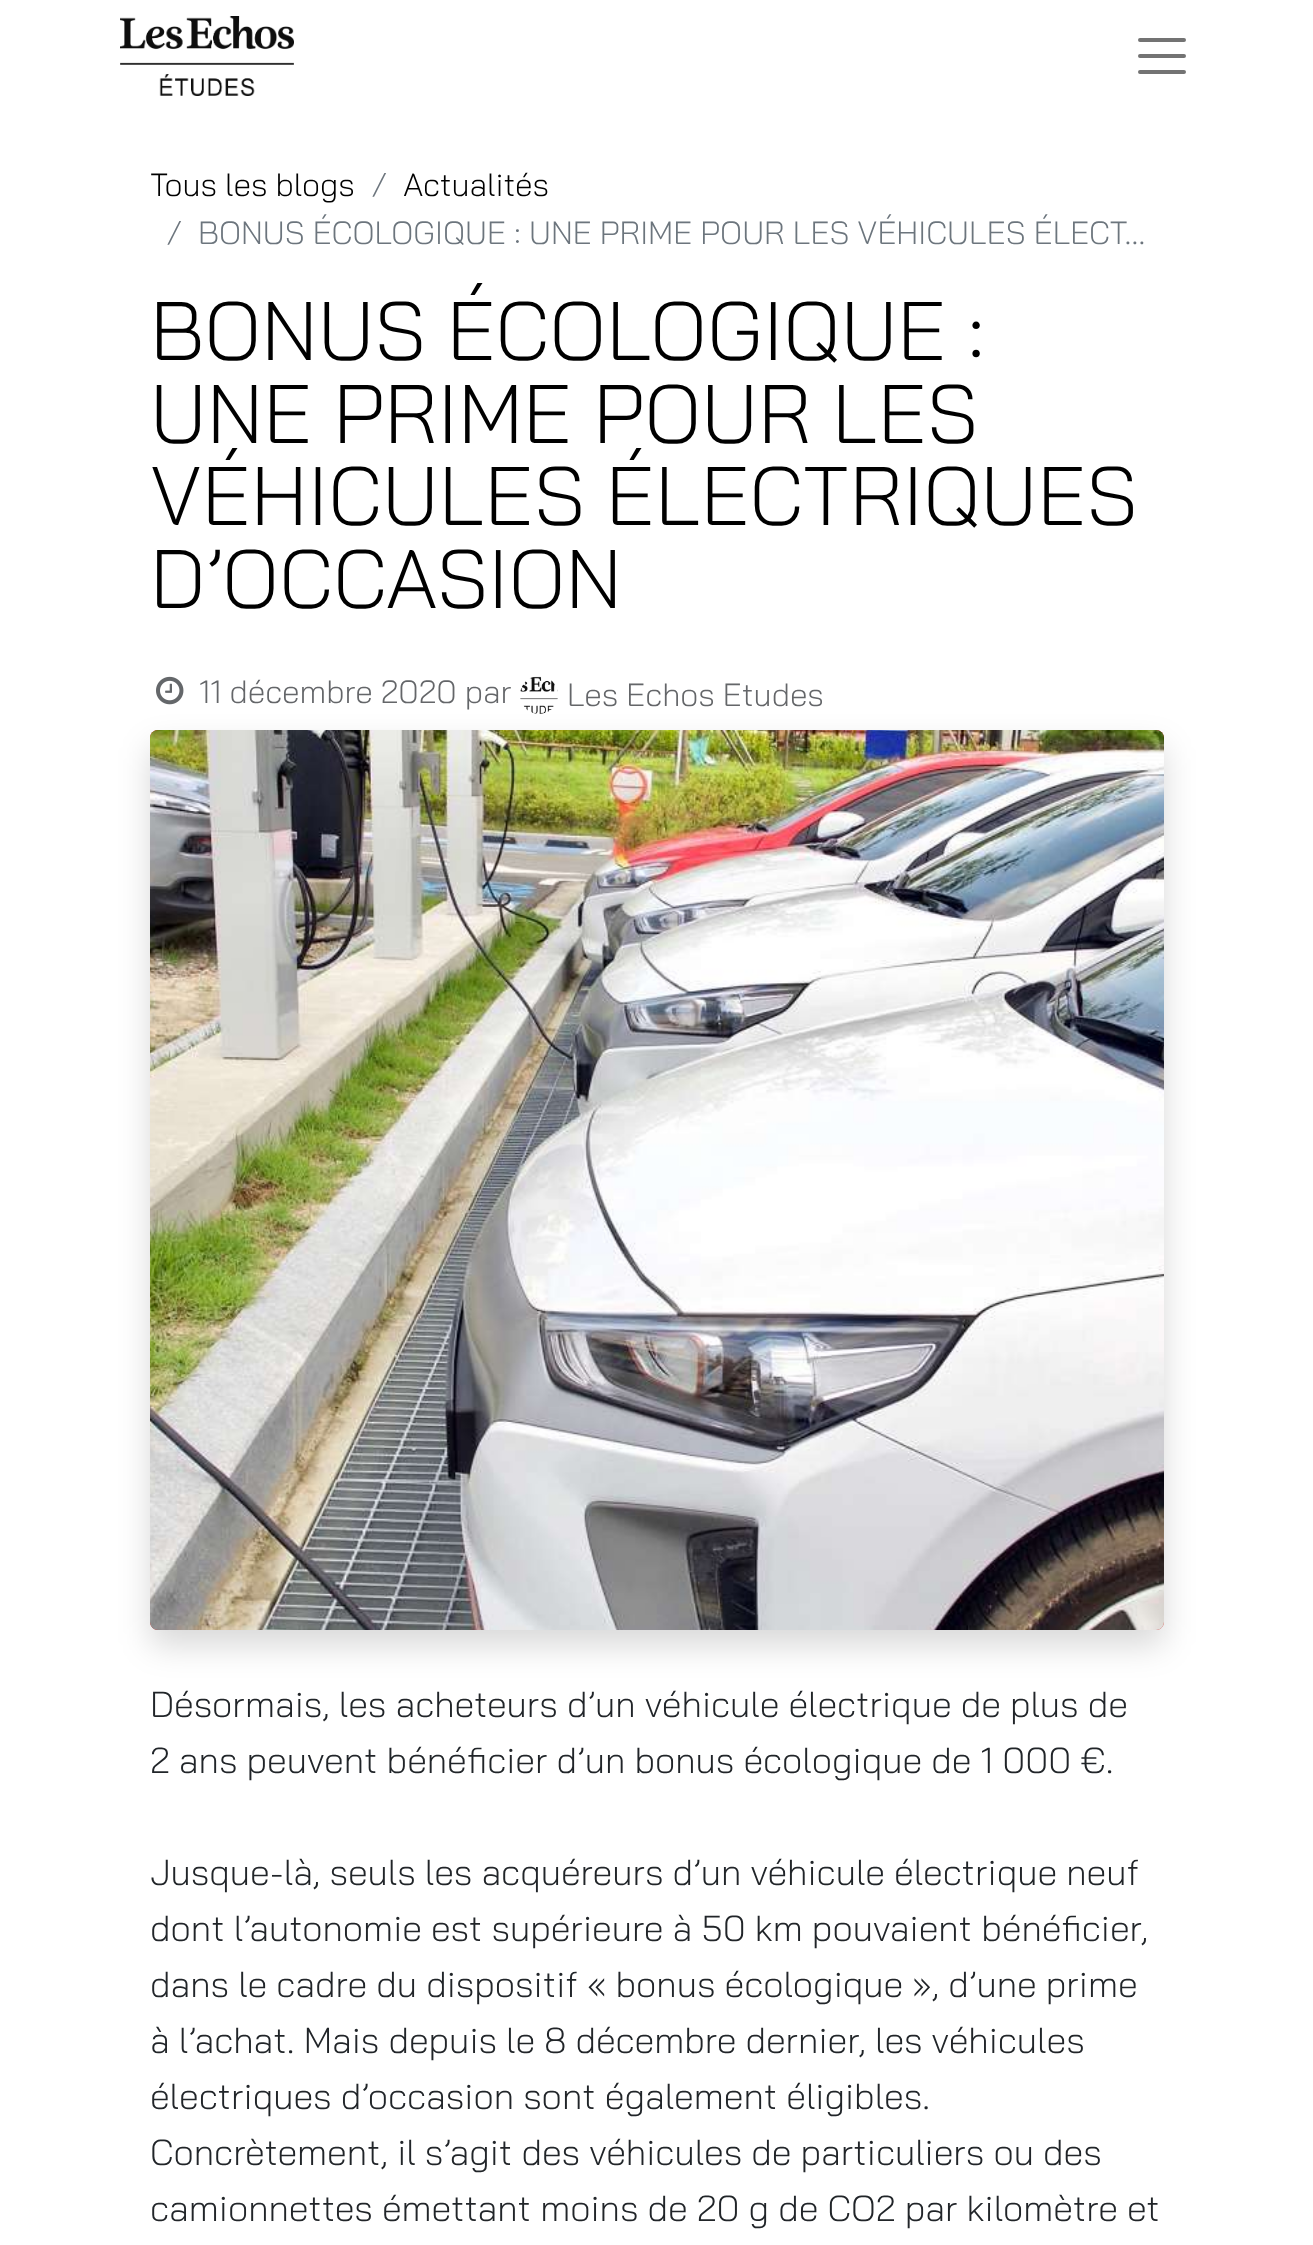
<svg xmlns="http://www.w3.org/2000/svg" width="1313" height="2245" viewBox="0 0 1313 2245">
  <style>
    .t1 { font: 300 32px 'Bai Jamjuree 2'; fill: #000; }
    .t2 { font: 300 32px 'Bai Jamjuree 2'; fill: #6c757d; }
    .t3 { font: 300 82.75px Bai Jamjuree; fill: #000; }
    .t4 { font: 300 32px 'Bai Jamjuree 2'; fill: #646669; }
    .t5 { font: 300 36px 'Bai Jamjuree 2'; fill: #212529; }
    .t6 { font: 300 36px Bai Jamjuree; fill: #212529; }
  </style>
  <rect width="100%" height="100%" fill="#fff"/>
  <image x="120" y="16" width="174" height="80" href="images/1.png"/>
  <path d="M1140 40H1184M1140 56H1184M1140 72H1184" fill="none" stroke="#737373" stroke-width="4" stroke-linecap="round"/>
  <text x="150" y="196" class="t1">Tous les blogs</text>
  <text x="371" y="196" class="t2">/</text>
  <text x="403" y="196" class="t1">Actualités</text>
  <text x="166" y="244" class="t2">/</text>
  <text x="198" y="244" class="t2">BONUS ÉCOLOGIQUE : UNE PRIME POUR LES VÉHICULES ÉLECT…</text>
  <text x="150" y="360" class="t3">BONUS ÉCOLOGIQUE :</text>
  <text x="150" y="443" class="t3">UNE PRIME POUR LES</text>
  <text x="150" y="525" class="t3">VÉHICULES ÉLECTRIQUES</text>
  <text x="150" y="608" class="t3">D’OCCASION</text>
  <image x="156" y="676" width="28" height="29" href="images/2.png"/>
  <text x="199" y="703" class="t4">11 décembre 2020 par</text>
  <image x="520" y="676" width="38" height="38" href="images/3.png"/>
  <text x="567" y="706" class="t4">Les Echos Etudes</text>
  <rect x="150" y="746" width="1014" height="900" rx="8" fill="#00000026" filter="blur(16px)"/>
  <rect x="150" y="730" width="1014" height="900" rx="8" fill="#cf231f"/>
  <image x="150" y="730" width="1014" height="900" href="images/4.png"/>
  <text x="150" y="1717" class="t5">Désormais, les acheteurs d’un véhicule électrique de plus de</text>
  <text x="150" y="1773" class="t5">2 ans peuvent bénéficier d’un bonus écologique de 1 000 €.</text>
  <text x="150" y="1885" class="t6">Jusque-là, seuls les acquéreurs d’un véhicule électrique neuf</text>
  <text x="150" y="1941" class="t6">dont l’autonomie est supérieure à 50 km pouvaient bénéficier,</text>
  <text x="150" y="1997" class="t6">dans le cadre du dispositif « bonus écologique », d’une prime</text>
  <text x="150" y="2053" class="t6">à l’achat. Mais depuis le 8 décembre dernier, les véhicules</text>
  <text x="150" y="2109" class="t6">électriques d’occasion sont également éligibles.</text>
  <text x="150" y="2165" class="t6">Concrètement, il s’agit des véhicules de particuliers ou des</text>
  <text x="150" y="2221" class="t6">camionnettes émettant moins de 20 g de CO2 par kilomètre et</text>
</svg>
